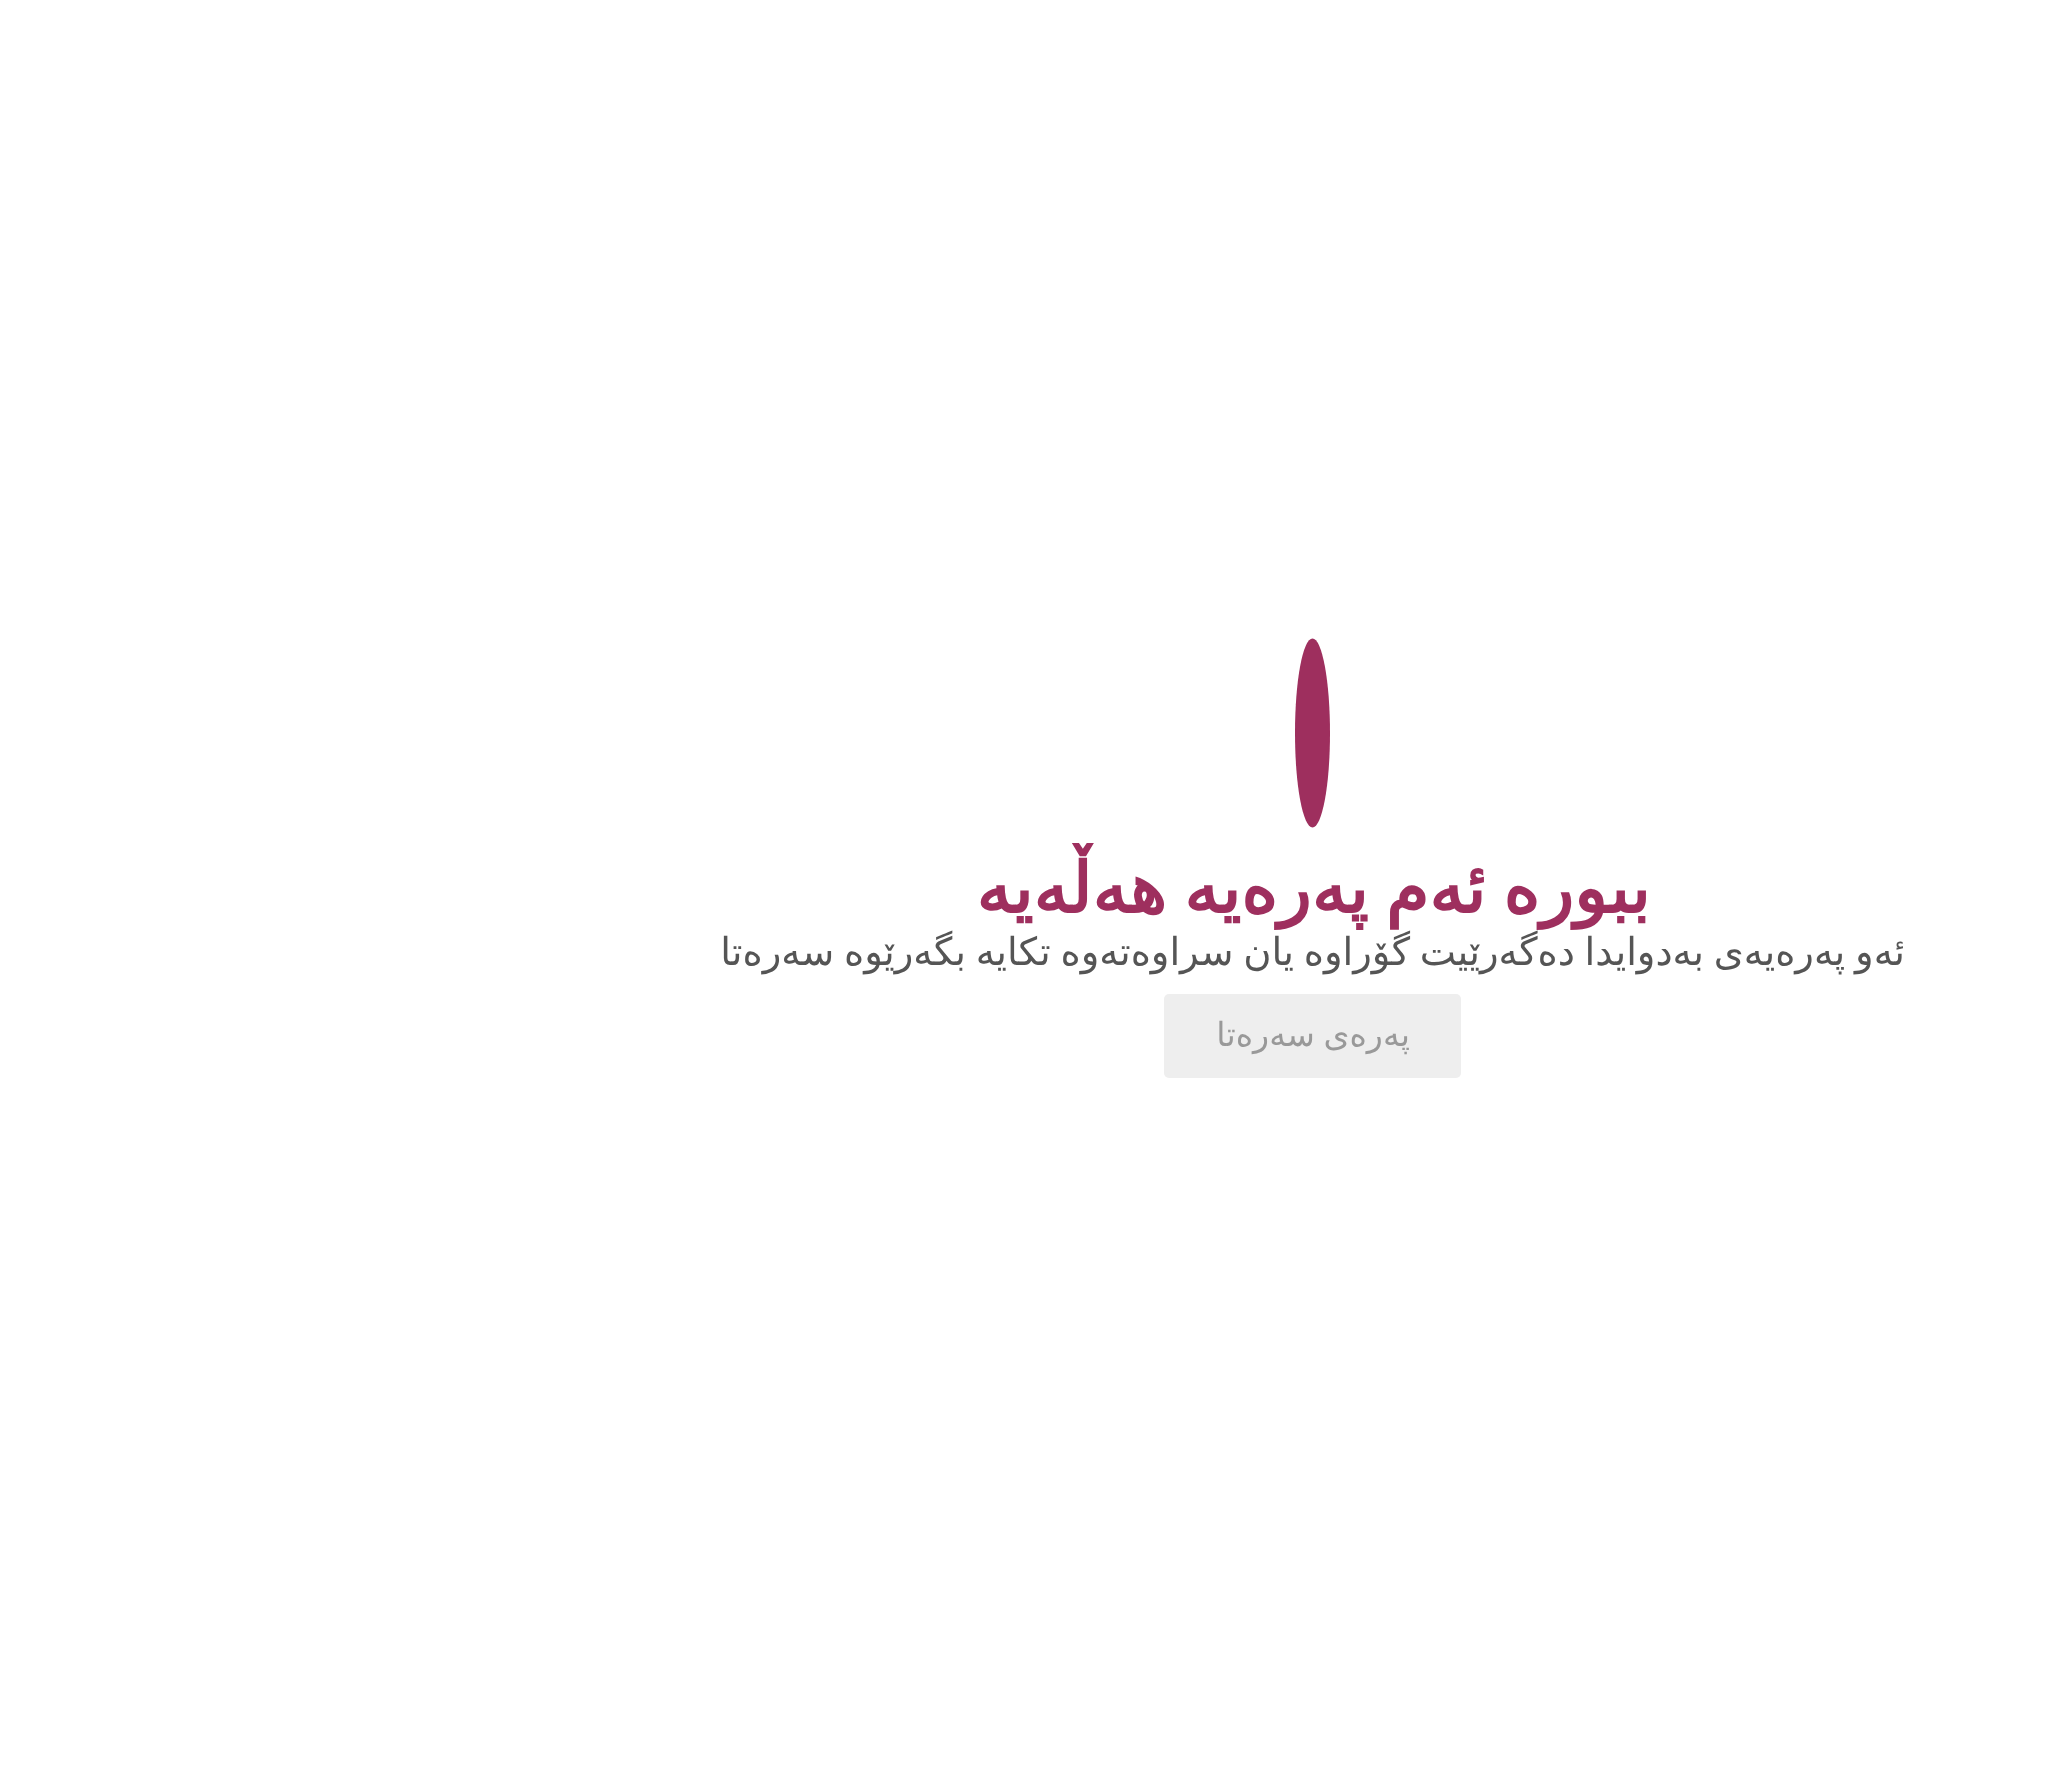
<svg xmlns="http://www.w3.org/2000/svg" width="2071" height="1787" viewBox="0 0 2071 1787">
  <style>
    .t1 { font: bold 70px DejaVu Sans; direction: rtl; fill: #9e2f5e; }
    .t2 { font: 38.5px DejaVu Sans; direction: rtl; fill: #555; }
    .t3 { font: 33.25px DejaVu Sans; direction: rtl; fill: #999; }
  </style>
  <rect width="100%" height="100%" fill="#fff"/>
  <ellipse cx="1312.5" cy="733" rx="17.5" ry="94.5" fill="#9e2f5e"/>
  <text x="1650" y="913" word-spacing="-5" class="t1">ببورە ئەم پەرەیە هەڵەیە</text>
  <text x="1905" y="965" word-spacing="-2.5" class="t2">ئەو پەرەیەی بەدوایدا دەگەرێیت گۆراوە یان سراوەتەوە تکایە بگەرێوە سەرەتا</text>
  <rect x="1164" y="994" width="297" height="84" rx="5" fill="#eee"/>
  <text x="1410" y="1046" word-spacing="-2" class="t3">پەرەی سەرەتا</text>
</svg>
